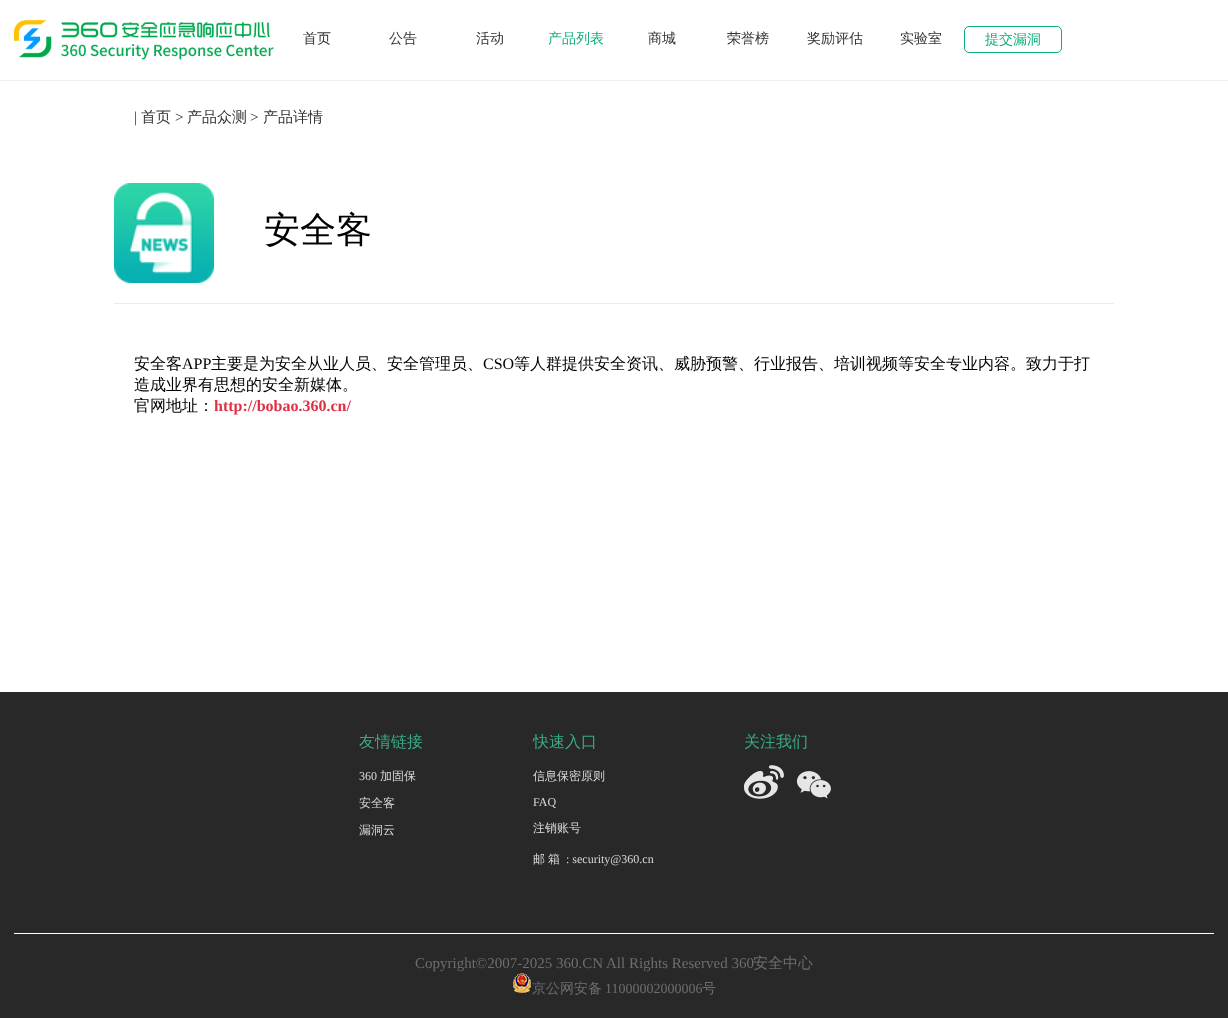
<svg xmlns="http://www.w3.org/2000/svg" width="1228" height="1018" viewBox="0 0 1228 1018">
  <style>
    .t1 { font: 500 14px WenQuanYi Zen Hei; fill: #333; }
    .t2 { font: 500 14px WenQuanYi Zen Hei; fill: #0ead7d; }
    .t3 { font: 15px Liberation Serif; fill: #333; }
    .t4 { font: 500 15px WenQuanYi Zen Hei; fill: #333; }
    .t5 { font: 500 36px WenQuanYi Zen Hei; fill: #000; }
    .t6 { font: 500 16px WenQuanYi Zen Hei; fill: #000; }
    .t7 { font: 16px Liberation Serif; fill: #000; }
    .t8 { font: bold 16px Liberation Serif; fill: #df3145; }
    .t9 { font: 500 16px WenQuanYi Zen Hei; fill: #39a987; }
    .t10 { font: 12px Liberation Serif; fill: #dadada; }
    .t11 { font: 500 12px WenQuanYi Zen Hei; fill: #dadada; }
    .t12 { font: 15px Liberation Serif; fill: #6b6d71; }
    .t13 { font: 500 15px WenQuanYi Zen Hei; fill: #6b6d71; }
    .t14 { font: 500 14px WenQuanYi Zen Hei; fill: #6b6d71; }
    .t15 { font: 14px Liberation Serif; fill: #6b6d71; }
  </style>
  <rect width="100%" height="100%" fill="#fff"/>
  <rect x="0" y="80" width="1228" height="1" fill="#eee"/>
  <image x="14" y="20" width="260" height="40" href="images/1.png"/>
  <text x="303" y="43" class="t1">首页</text>
  <text x="389" y="43" class="t1">公告</text>
  <text x="476" y="43" class="t1">活动</text>
  <text x="548" y="43" class="t2">产品列表</text>
  <text x="648" y="43" class="t1">商城</text>
  <text x="727" y="43" class="t1">荣誉榜</text>
  <text x="807" y="43" class="t1">奖励评估</text>
  <text x="900" y="43" class="t1">实验室</text>
  <rect x="964.5" y="26.5" width="97" height="26" rx="4.5" fill="none" stroke="#0ead7d"/>
  <text x="985" y="44" class="t2">提交漏洞</text>
  <text x="134" y="122" class="t3">|</text>
  <text x="141" y="122" class="t4">首页</text>
  <text x="175" y="122" class="t3">&gt;</text>
  <text x="187" y="122" class="t4">产品众测</text>
  <text x="250" y="122" class="t3">&gt;</text>
  <text x="263" y="122" class="t4">产品详情</text>
  <rect x="114" y="303" width="1000" height="1" fill="#ebebeb"/>
  <image x="114" y="183" width="100" height="100" href="images/2.png"/>
  <text x="264" y="242" class="t5">安全客</text>
  <text x="134" y="369" class="t6">安全客</text>
  <text x="182" y="369" class="t7">APP</text>
  <text x="211" y="369" class="t6">主要是为安全从业人员、安全管理员、</text>
  <text x="483" y="369" class="t7">CSO</text>
  <text x="514" y="369" class="t6">等人群提供安全资讯、威胁预警、行业报告、培训视频等安全专业内容。致力于打</text>
  <text x="134" y="390" class="t6">造成业界有思想的安全新媒体。</text>
  <text x="134" y="411" class="t6">官网地址：</text>
  <text x="214" y="411" class="t8">http://bobao.360.cn/</text>
  <rect x="0" y="692" width="1228" height="326" fill="#282828"/>
  <rect x="14" y="933" width="1200" height="1" fill="#fff"/>
  <text x="359" y="747" class="t9">友情链接</text>
  <text x="359" y="780" class="t10">360</text>
  <text x="380" y="780" class="t11">加固保</text>
  <text x="359" y="807" class="t11">安全客</text>
  <text x="359" y="834" class="t11">漏洞云</text>
  <text x="533" y="747" class="t9">快速入口</text>
  <text x="533" y="780" class="t11">信息保密原则</text>
  <text x="533" y="806" class="t10">FAQ</text>
  <text x="533" y="832" class="t11">注销账号</text>
  <text x="533" y="863" class="t11">邮</text>
  <text x="548" y="863" class="t11">箱</text>
  <text x="566" y="863" class="t10">: security@360.cn</text>
  <text x="744" y="747" class="t9">关注我们</text>
  <image x="744" y="765" width="40" height="34" href="images/3.png"/>
  <image x="796" y="771" width="35" height="28" href="images/4.png"/>
  <text x="415" y="968" class="t12">Copyright©2007-2025 360.CN All Rights Reserved 360</text>
  <text x="753" y="968" class="t13">安全中心</text>
  <image x="513" y="973" width="18" height="20" href="images/5.png"/>
  <text x="532" y="993" class="t14">京公网安备</text>
  <text x="605" y="993" class="t15">11000002000006</text>
  <text x="702" y="993" class="t14">号</text>
</svg>
